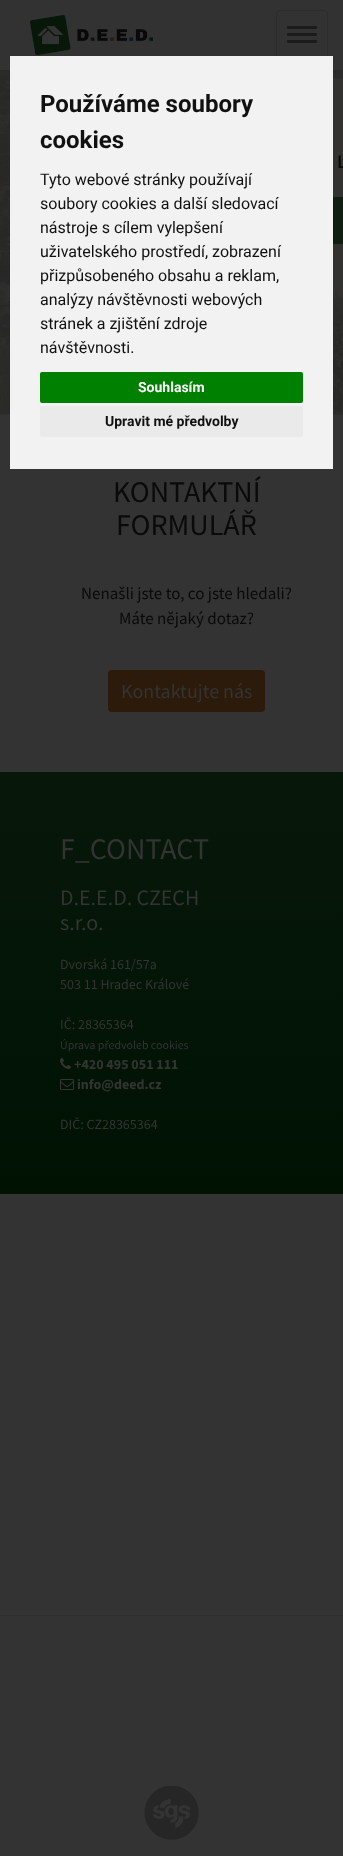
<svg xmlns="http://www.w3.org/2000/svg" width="343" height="1856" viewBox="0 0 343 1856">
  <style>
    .t1 { font: bold 24px Roboto; fill: #111; }
    .t2 { font: 16px Roboto; fill: #111; }
    .t3 { font: bold 14px Roboto; fill: #fff; }
    .t4 { font: bold 14px Roboto; fill: #111; }
    .t5 { font: 600 19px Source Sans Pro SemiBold; fill: #0a0a0a; }
    .t6 { font: 30px Source Sans Pro; fill: #0a0a0a; }
    .t7 { font: 17px Source Sans Pro; fill: #0a0a0a; }
    .t8 { font: 20px Source Sans Pro; fill: #333; }
    .t9 { font: 30px Source Sans Pro; fill: #333; }
    .t10 { font: 22px Source Sans Pro; fill: #333; }
    .t11 { font: 14px Source Sans Pro; fill: #333; }
    .t12 { font: 11.9px Source Sans Pro; fill: #333; }
    .t13 { font: bold 14px Source Sans Pro; fill: #333; }
  </style>
  <defs>
    <linearGradient id="g1" gradientUnits="userSpaceOnUse" x1="172" y1="1194" x2="172" y2="772"><stop offset="0" stop-color="#001303"/><stop offset="1" stop-color="#07180a"/></linearGradient>
  </defs>
  <rect width="100%" height="100%" fill="#333"/>
  <image x="0" y="0" width="343" height="414" href="images/2.png"/>
  <rect x="0" y="0" width="343" height="70" fill="#333333e6"/>
  <image x="30" y="15" width="123" height="40" href="images/1.png"/>
  <rect x="276.5" y="10.5" width="51" height="48" rx="3.5" fill="none" stroke="#2c2c2c"/>
  <rect x="287" y="26" width="30" height="3" rx="1" fill="#1b1b1b"/>
  <rect x="287" y="33" width="30" height="3" rx="1" fill="#1b1b1b"/>
  <rect x="287" y="40" width="30" height="3" rx="1" fill="#1b1b1b"/>
  <rect x="0" y="414" width="343" height="1" fill="#2e2e2e"/>
  <rect x="10" y="56" width="323" height="413" fill="#f2f2f2"/>
  <text x="40" y="112" class="t1">Používáme soubory</text>
  <text x="40" y="148" class="t1">cookies</text>
  <text x="40" y="185" class="t2">Tyto webové stránky používají</text>
  <text x="40" y="209" class="t2">soubory cookies a další sledovací</text>
  <text x="40" y="233" class="t2">nástroje s cílem vylepšení</text>
  <text x="40" y="257" class="t2">uživatelského prostředí, zobrazení</text>
  <text x="40" y="281" class="t2">přizpůsobeného obsahu a reklam,</text>
  <text x="40" y="305" class="t2">analýzy návštěvnosti webových</text>
  <text x="40" y="329" class="t2">stránek a zjištění zdroje</text>
  <text x="40" y="353" class="t2">návštěvnosti.</text>
  <rect x="40" y="372" width="263" height="31" rx="2" fill="#008000"/>
  <text x="138" y="392" class="t3">Souhlasím</text>
  <rect x="40" y="406" width="263" height="31" rx="2" fill="#eaeaea"/>
  <text x="105" y="426" class="t4">Upravit mé předvolby</text>
  <text x="337" y="168" class="t5">L</text>
  <rect x="333" y="197" width="10" height="47" fill="#07180acc"/>
  <text x="113" y="502" class="t6">KONTAKTNÍ</text>
  <text x="116" y="535" class="t6">FORMULÁŘ</text>
  <text x="81" y="599" class="t7">Nenašli jste to, co jste hledali?</text>
  <text x="119" y="624" class="t7">Máte nějaký dotaz?</text>
  <rect x="108" y="670" width="157" height="42" rx="4" fill="#2c1b0a"/>
  <text x="121" y="698" class="t8">Kontaktujte nás</text>
  <rect x="0" y="772" width="343" height="422" fill="url(#g1)"/>
  <text x="60" y="859" class="t9">F_CONTACT</text>
  <text x="60" y="905" class="t10">D.E.E.D. CZECH</text>
  <text x="60" y="930" class="t10">s.r.o.</text>
  <text x="60" y="969" class="t11">Dvorská 161/57a</text>
  <text x="60" y="989" class="t11">503 11 Hradec Králové</text>
  <text x="60" y="1029" class="t11">IČ: 28365364</text>
  <text x="60" y="1049" class="t12">Úprava předvoleb cookies</text>
  <image x="60" y="1058" width="11" height="11" href="images/3.png"/>
  <text x="74" y="1069" class="t13">+420 495 051 111</text>
  <image x="60" y="1079" width="14" height="11" href="images/4.png"/>
  <text x="77" y="1089" class="t13">info@deed.cz</text>
  <text x="60" y="1129" class="t11">DIČ: CZ28365364</text>
  <rect x="0" y="1615" width="343" height="1" fill="#2e2e2e"/>
  <image x="144" y="1786" width="55" height="54" href="images/5.png"/>
</svg>
